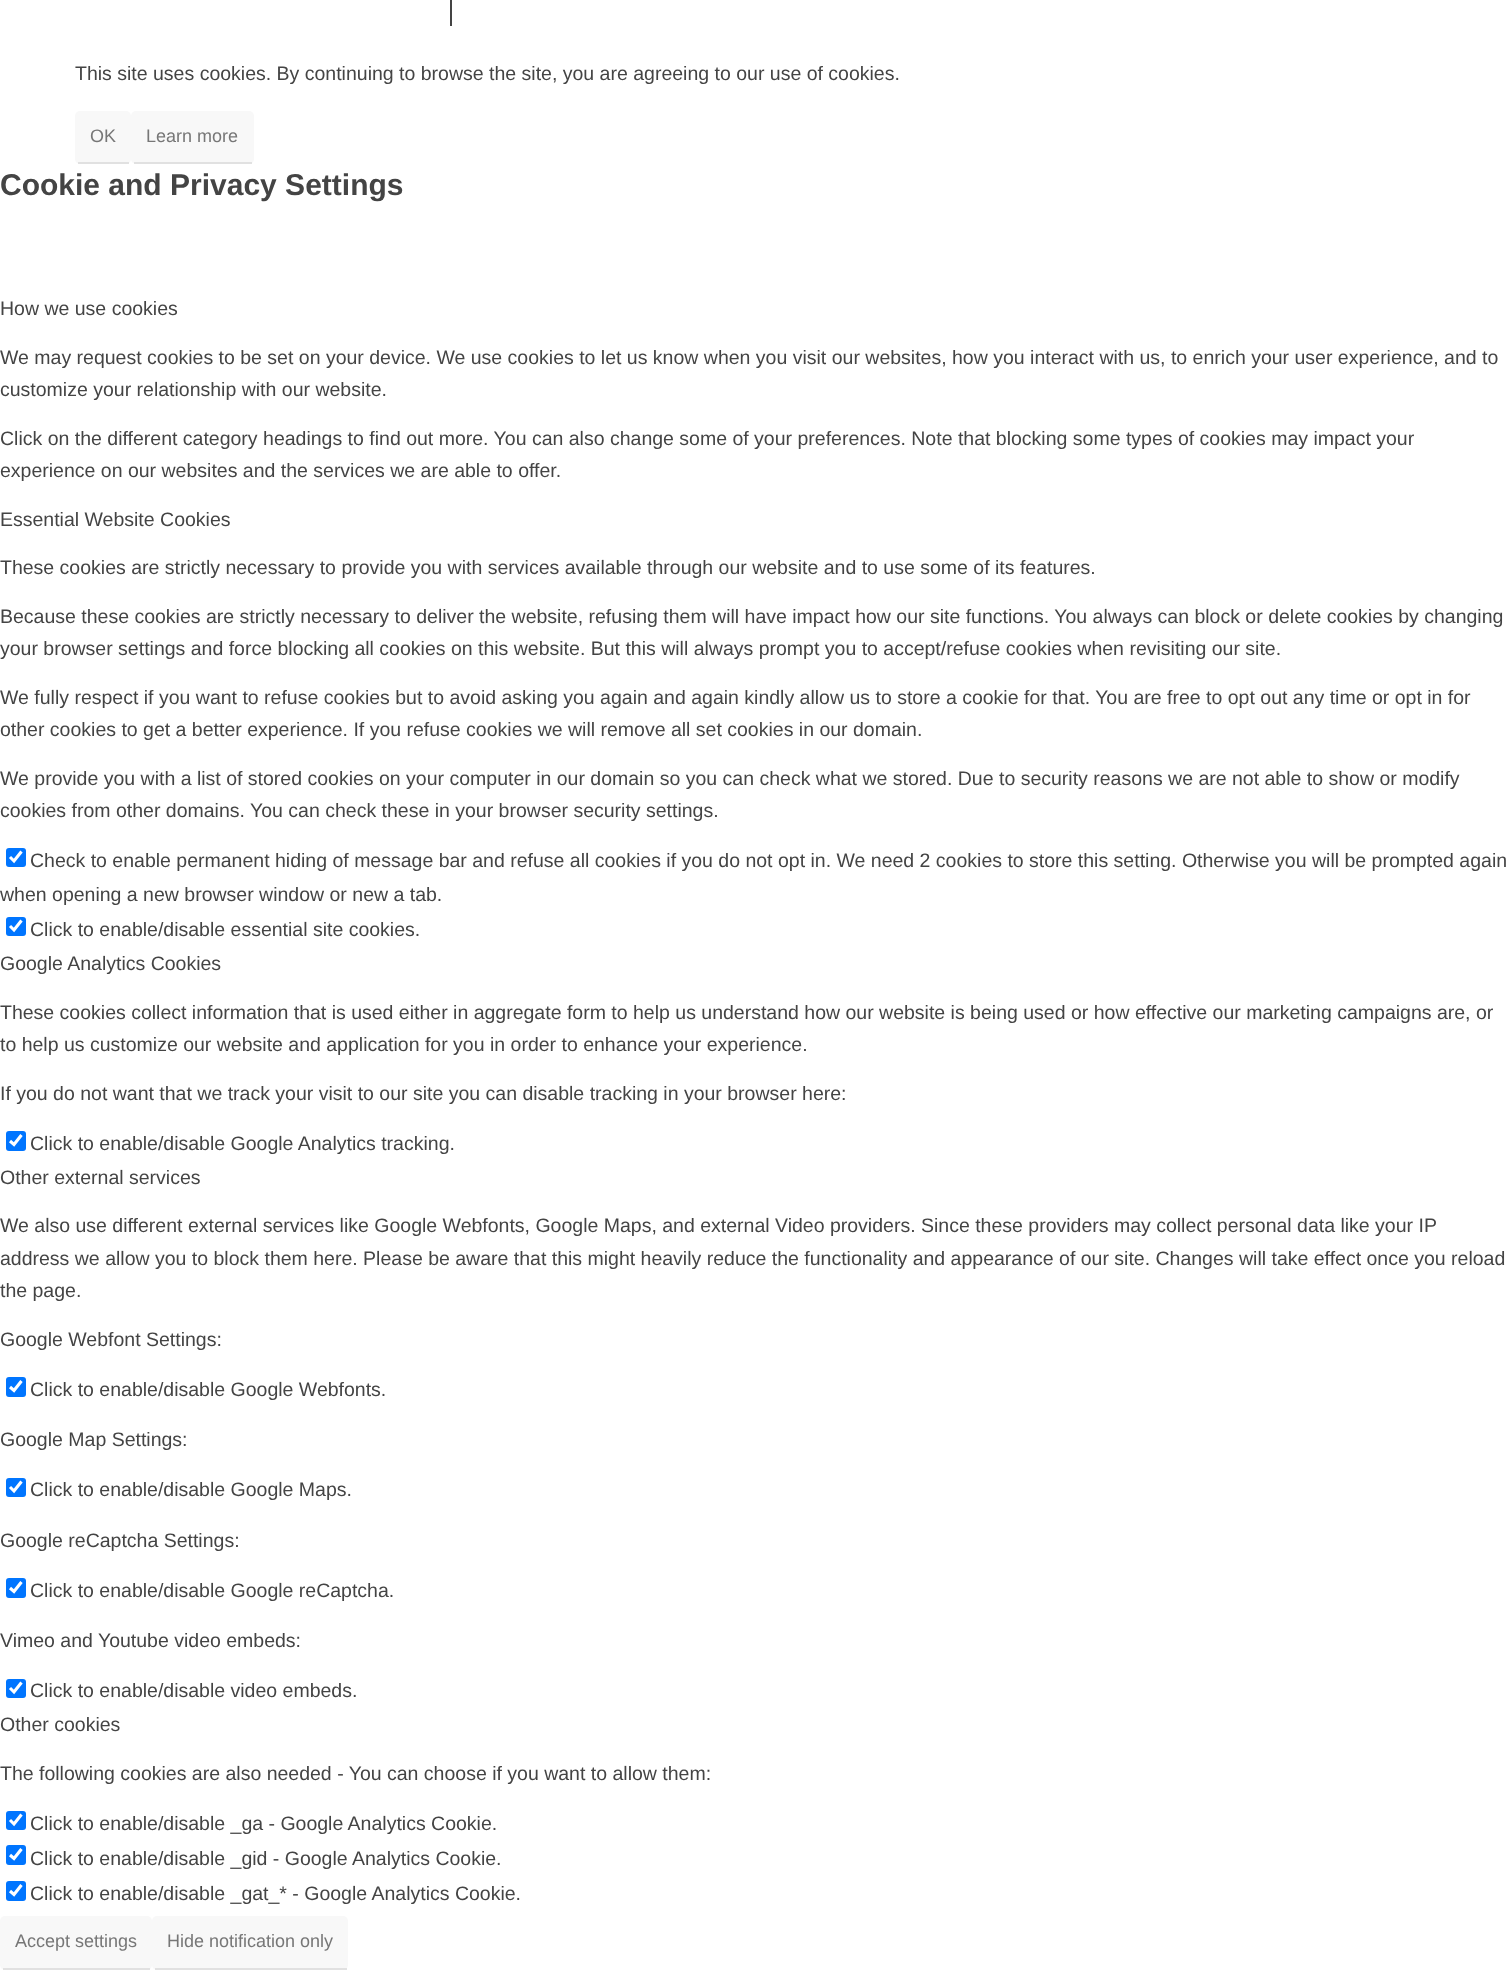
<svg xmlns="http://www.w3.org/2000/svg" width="1510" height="1974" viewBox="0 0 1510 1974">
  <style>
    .t1 { font: 19.5px Liberation Sans; fill: #444; }
    .t2 { font: 18px Liberation Sans; fill: #777; }
    .t3 { font: bold 30px Liberation Sans; fill: #444; }
  </style>
  <rect width="100%" height="100%" fill="#fff"/>
  <rect x="450" y="0" width="2" height="26" fill="#444"/>
  <text x="75" y="80" class="t1">This site uses cookies. By continuing to browse the site, you are agreeing to our use of cookies.</text>
  <rect x="75" y="111" width="56" height="53" rx="5" fill="#f8f8f8"/>
  <rect x="78" y="162" width="51" height="2" fill="#e1e1e1"/>
  <text x="90" y="142" class="t2">OK</text>
  <rect x="131" y="111" width="123" height="53" rx="5" fill="#f8f8f8"/>
  <rect x="134" y="162" width="118" height="2" fill="#e1e1e1"/>
  <text x="146" y="142" class="t2">Learn more</text>
  <text x="0" y="195" class="t3">Cookie and Privacy Settings</text>
  <text x="0" y="315" class="t1">How we use cookies</text>
  <text x="0" y="364" class="t1">We may request cookies to be set on your device. We use cookies to let us know when you visit our websites, how you interact with us, to enrich your user experience, and to</text>
  <text x="0" y="396" class="t1">customize your relationship with our website.</text>
  <text x="0" y="445" class="t1">Click on the different category headings to find out more. You can also change some of your preferences. Note that blocking some types of cookies may impact your</text>
  <text x="0" y="477" class="t1">experience on our websites and the services we are able to offer.</text>
  <text x="0" y="526" class="t1">Essential Website Cookies</text>
  <text x="0" y="574" class="t1">These cookies are strictly necessary to provide you with services available through our website and to use some of its features.</text>
  <text x="0" y="623" class="t1">Because these cookies are strictly necessary to deliver the website, refusing them will have impact how our site functions. You always can block or delete cookies by changing</text>
  <text x="0" y="655" class="t1">your browser settings and force blocking all cookies on this website. But this will always prompt you to accept/refuse cookies when revisiting our site.</text>
  <text x="0" y="704" class="t1">We fully respect if you want to refuse cookies but to avoid asking you again and again kindly allow us to store a cookie for that. You are free to opt out any time or opt in for</text>
  <text x="0" y="736" class="t1">other cookies to get a better experience. If you refuse cookies we will remove all set cookies in our domain.</text>
  <text x="0" y="785" class="t1">We provide you with a list of stored cookies on your computer in our domain so you can check what we stored. Due to security reasons we are not able to show or modify</text>
  <text x="0" y="817" class="t1">cookies from other domains. You can check these in your browser security settings.</text>
  <rect x="6" y="848" width="20" height="19" rx="3" fill="#0075ff"/>
  <path d="M10 857L14 861L21.5 851.5" fill="none" stroke="#fff" stroke-width="3.1"/>
  <text x="30" y="867" class="t1">Check to enable permanent hiding of message bar and refuse all cookies if you do not opt in. We need 2 cookies to store this setting. Otherwise you will be prompted again</text>
  <text x="0" y="901" class="t1">when opening a new browser window or new a tab.</text>
  <rect x="6" y="917" width="20" height="19" rx="3" fill="#0075ff"/>
  <path d="M10 926L14 930L21.5 920.5" fill="none" stroke="#fff" stroke-width="3.1"/>
  <text x="30" y="936" class="t1">Click to enable/disable essential site cookies.</text>
  <text x="0" y="970" class="t1">Google Analytics Cookies</text>
  <text x="0" y="1019" class="t1">These cookies collect information that is used either in aggregate form to help us understand how our website is being used or how effective our marketing campaigns are, or</text>
  <text x="0" y="1051" class="t1">to help us customize our website and application for you in order to enhance your experience.</text>
  <text x="0" y="1100" class="t1">If you do not want that we track your visit to our site you can disable tracking in your browser here:</text>
  <rect x="6" y="1131" width="20" height="20" rx="3" fill="#0075ff"/>
  <path d="M10 1141L14 1144.5L21.5 1135" fill="none" stroke="#fff" stroke-width="3.1"/>
  <text x="30" y="1150" class="t1">Click to enable/disable Google Analytics tracking.</text>
  <text x="0" y="1184" class="t1">Other external services</text>
  <text x="0" y="1232" class="t1">We also use different external services like Google Webfonts, Google Maps, and external Video providers. Since these providers may collect personal data like your IP</text>
  <text x="0" y="1265" class="t1">address we allow you to block them here. Please be aware that this might heavily reduce the functionality and appearance of our site. Changes will take effect once you reload</text>
  <text x="0" y="1297" class="t1">the page.</text>
  <text x="0" y="1346" class="t1">Google Webfont Settings:</text>
  <rect x="6" y="1377" width="20" height="20" rx="3" fill="#0075ff"/>
  <path d="M10 1387L14 1390.5L21.5 1381" fill="none" stroke="#fff" stroke-width="3.1"/>
  <text x="30" y="1396" class="t1">Click to enable/disable Google Webfonts.</text>
  <text x="0" y="1446" class="t1">Google Map Settings:</text>
  <rect x="6" y="1478" width="20" height="19" rx="3" fill="#0075ff"/>
  <path d="M10 1487L14 1491L21.5 1481.5" fill="none" stroke="#fff" stroke-width="3.1"/>
  <text x="30" y="1496" class="t1">Click to enable/disable Google Maps.</text>
  <text x="0" y="1547" class="t1">Google reCaptcha Settings:</text>
  <rect x="6" y="1578" width="20" height="20" rx="3" fill="#0075ff"/>
  <path d="M10 1588L14 1591.5L21.5 1582" fill="none" stroke="#fff" stroke-width="3.1"/>
  <text x="30" y="1597" class="t1">Click to enable/disable Google reCaptcha.</text>
  <text x="0" y="1647" class="t1">Vimeo and Youtube video embeds:</text>
  <rect x="6" y="1679" width="20" height="19" rx="3" fill="#0075ff"/>
  <path d="M10 1688L14 1692L21.5 1682.5" fill="none" stroke="#fff" stroke-width="3.1"/>
  <text x="30" y="1697" class="t1">Click to enable/disable video embeds.</text>
  <text x="0" y="1731" class="t1">Other cookies</text>
  <text x="0" y="1780" class="t1">The following cookies are also needed - You can choose if you want to allow them:</text>
  <rect x="6" y="1811" width="20" height="19" rx="3" fill="#0075ff"/>
  <path d="M10 1820L14 1824L21.5 1814.5" fill="none" stroke="#fff" stroke-width="3.1"/>
  <text x="30" y="1830" class="t1">Click to enable/disable _ga - Google Analytics Cookie.</text>
  <rect x="6" y="1845" width="20" height="20" rx="3" fill="#0075ff"/>
  <path d="M10 1855L14 1858.5L21.5 1849" fill="none" stroke="#fff" stroke-width="3.1"/>
  <text x="30" y="1865" class="t1">Click to enable/disable _gid - Google Analytics Cookie.</text>
  <rect x="6" y="1881" width="20" height="20" rx="3" fill="#0075ff"/>
  <path d="M10 1891L14 1894.5L21.5 1885" fill="none" stroke="#fff" stroke-width="3.1"/>
  <text x="30" y="1900" class="t1">Click to enable/disable _gat_* - Google Analytics Cookie.</text>
  <rect x="0" y="1916" width="152" height="54" rx="5" fill="#f8f8f8"/>
  <rect x="3" y="1968" width="147" height="2" fill="#e1e1e1"/>
  <text x="15" y="1947" class="t2">Accept settings</text>
  <rect x="152" y="1916" width="196" height="54" rx="5" fill="#f8f8f8"/>
  <rect x="155" y="1968" width="192" height="2" fill="#e1e1e1"/>
  <text x="167" y="1947" class="t2">Hide notification only</text>
</svg>
